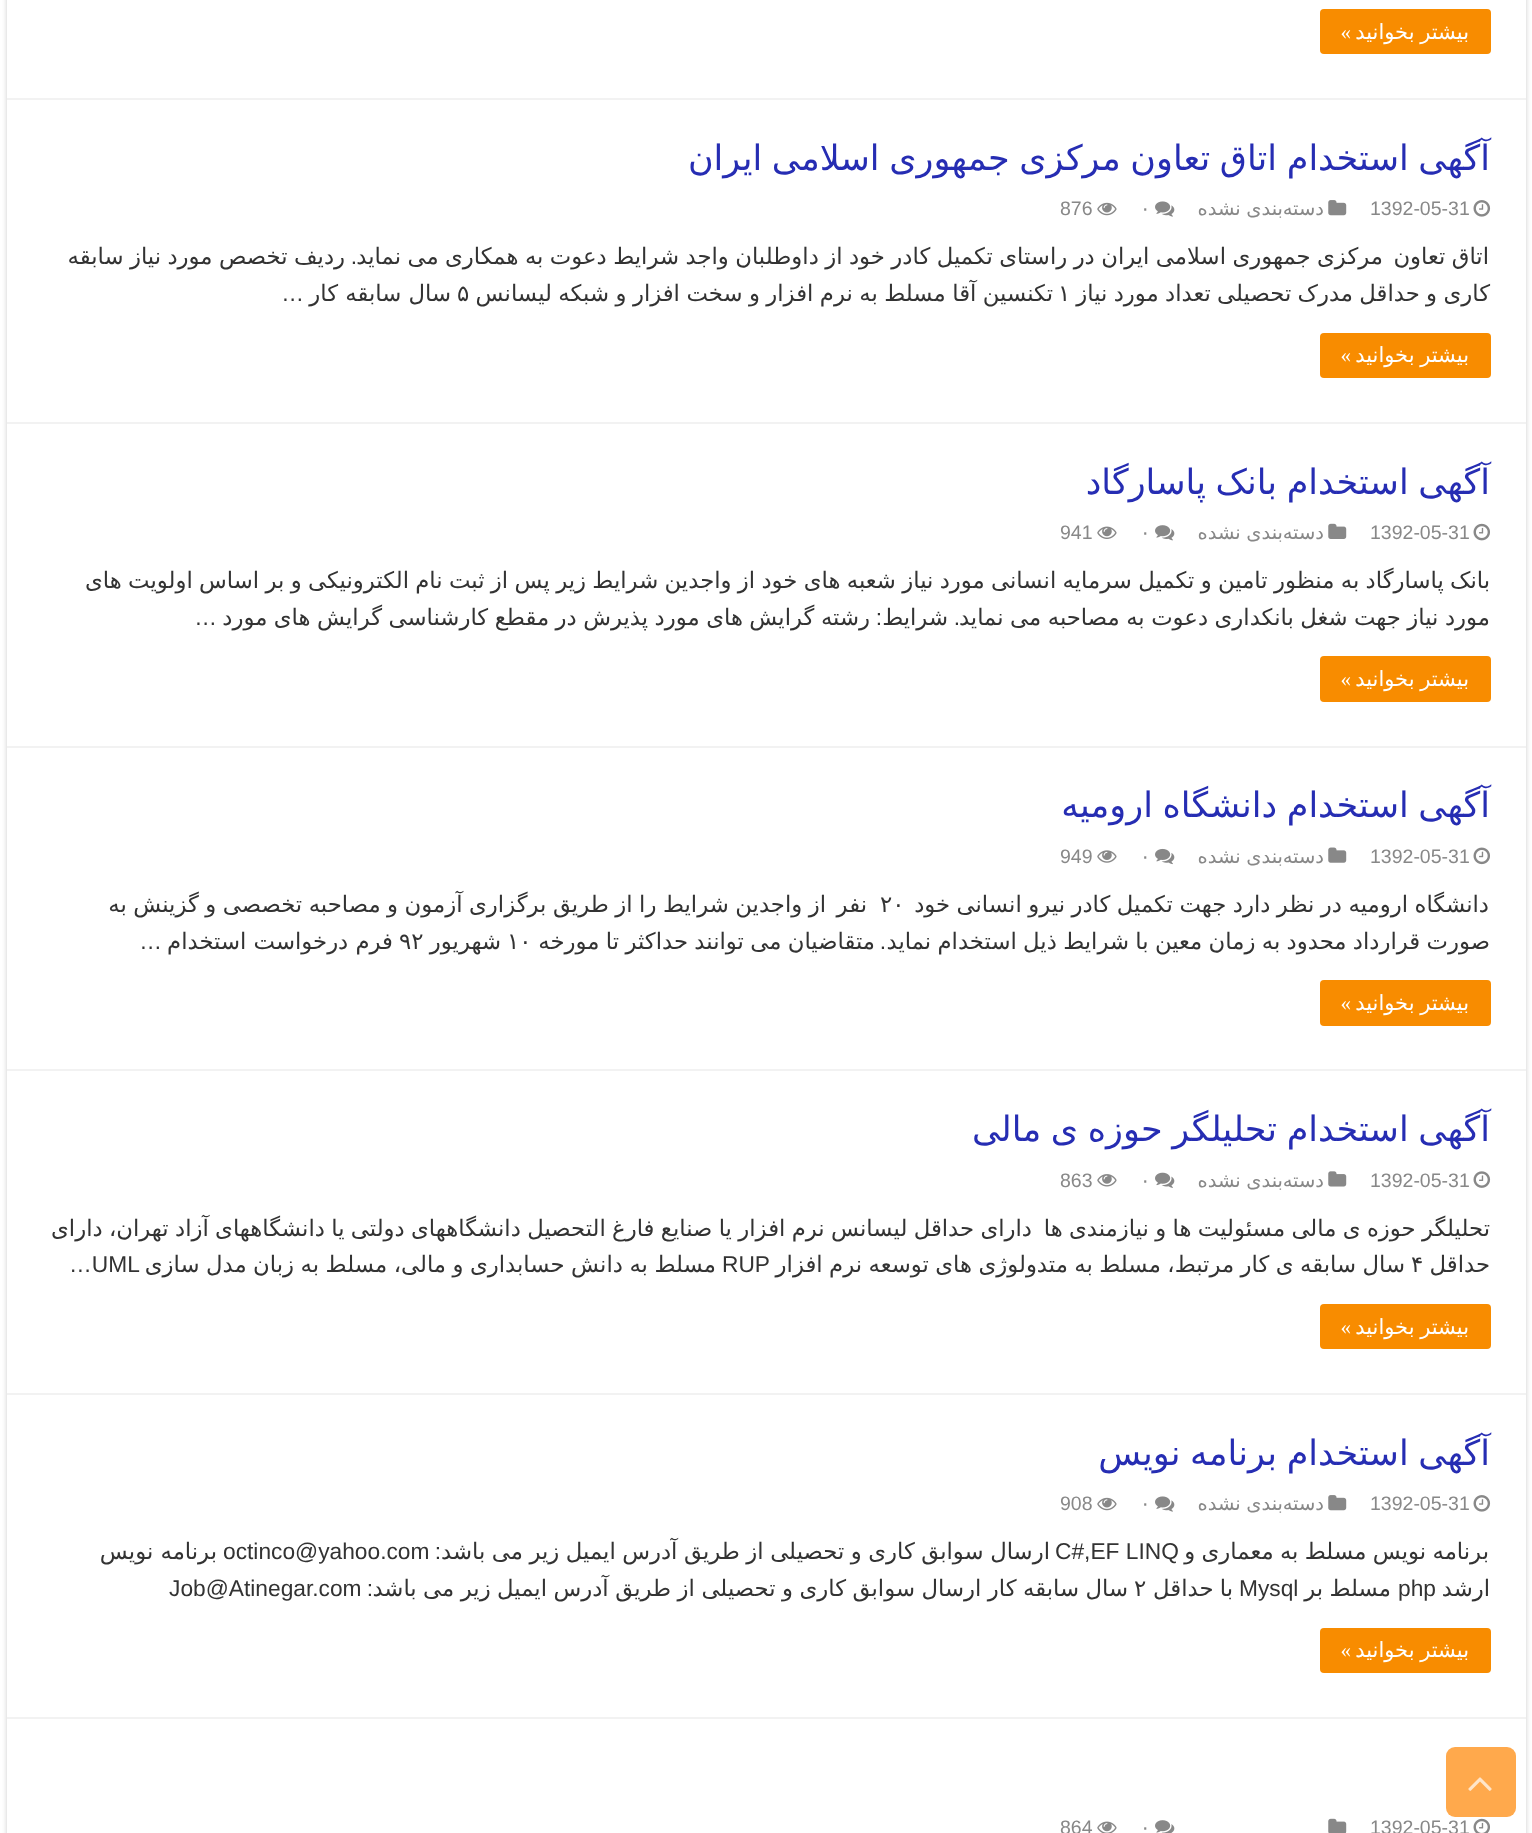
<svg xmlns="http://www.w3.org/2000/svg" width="1532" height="1833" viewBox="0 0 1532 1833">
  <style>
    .t1 { font: 21px DejaVu Sans; direction: rtl; fill: #fff; }
    .t2 { font: 21px Liberation Serif; direction: rtl; fill: #fff; }
    .t3 { font: 35px DejaVu Sans; direction: rtl; fill: #262db3; }
    .t4 { font: 19.5px Liberation Sans; fill: #888; }
    .t5 { font: 19.5px DejaVu Sans; direction: rtl; fill: #888; }
    .t6 { font: 19.5px DejaVu Sans; fill: #888; }
    .t7 { font: 22.75px DejaVu Sans; direction: rtl; fill: #333; }
    .t8 { font: 22.75px Liberation Sans; direction: rtl; fill: #333; }
    .t9 { font: 22.75px DejaVu Sans; fill: #333; }
    .t10 { font: 22.75px Liberation Sans; fill: #333; }
  </style>
  <defs>
    <clipPath id="clip1"><path d="M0 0H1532V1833H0ZM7-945H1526V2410H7Z" clip-rule="evenodd"/></clipPath>
  </defs>
  <rect width="100%" height="100%" fill="#fff"/>
  <g clip-path="url(#clip1)">
    <rect x="7" y="-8" width="1519" height="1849" fill="#cacaca" filter="blur(2.5px)"/>
  </g>
  <rect x="7" y="98" width="1519" height="2" fill="#f2f2f2"/>
  <rect x="1320" y="9" width="171" height="45" rx="4" fill="#f88c00"/>
  <text x="1469" y="39" word-spacing="-1" class="t1">بیشتر بخوانید</text>
  <text x="1351" y="39" class="t2">»</text>
  <rect x="7" y="422" width="1519" height="2" fill="#f2f2f2"/>
  <text x="1490" y="170" word-spacing="-1.5" class="t3">آگهی استخدام اتاق تعاون مرکزی جمهوری اسلامی ایران</text>
  <image x="1473" y="200" width="18" height="17" href="images/1.png"/>
  <text x="1370" y="215" class="t4">1392-05-31</text>
  <image x="1328" y="200" width="19" height="16" href="images/2.png"/>
  <text x="1324" y="215" class="t5">دسته</text>
  <text x="1283" y="215" word-spacing="-0.75" class="t5">بندی نشده</text>
  <image x="1155" y="201" width="20" height="16" href="images/3.png"/>
  <text x="1140" y="215" class="t6">۰</text>
  <image x="1097" y="202" width="20" height="14" href="images/4.png"/>
  <text x="1060" y="215" class="t4">876</text>
  <text x="1489" y="264" word-spacing="-0.8" class="t7">اتاق تعاون</text>
  <text x="1383" y="264" word-spacing="-0.8" class="t7">مرکزی جمهوری اسلامی ایران در راستای تکمیل کادر خود از داوطلبان واجد شرایط دعوت به همکاری می نماید</text>
  <text x="357" y="264" class="t8">.</text>
  <text x="345" y="264" word-spacing="-0.8" class="t7">ردیف تخصص مورد نیاز سابقه</text>
  <text x="1490" y="301" word-spacing="-0.9" class="t7">کاری و حداقل مدرک تحصیلی تعداد مورد نیاز</text>
  <text x="1053" y="301" word-spacing="-0.8" class="t7">تکنسین آقا مسلط به نرم افزار و سخت افزار و شبکه لیسانس</text>
  <text x="1058" y="301" class="t9">۱</text>
  <text x="457" y="301" class="t9">۵</text>
  <text x="451" y="301" class="t7">سال سابقه کار</text>
  <text x="304" y="301" class="t8">…</text>
  <rect x="1320" y="333" width="171" height="45" rx="4" fill="#f88c00"/>
  <text x="1469" y="362" word-spacing="-1" class="t1">بیشتر بخوانید</text>
  <text x="1351" y="362" class="t2">»</text>
  <rect x="7" y="746" width="1519" height="2" fill="#f2f2f2"/>
  <text x="1490" y="494" word-spacing="-1.5" class="t3">آگهی استخدام بانک پاسارگاد</text>
  <image x="1473" y="523" width="17" height="18" href="images/5.png"/>
  <text x="1370" y="539" class="t4">1392-05-31</text>
  <image x="1328" y="523" width="19" height="16" href="images/6.png"/>
  <text x="1324" y="539" class="t5">دسته</text>
  <text x="1283" y="539" word-spacing="-0.75" class="t5">بندی نشده</text>
  <image x="1155" y="525" width="20" height="16" href="images/7.png"/>
  <text x="1140" y="539" class="t6">۰</text>
  <image x="1097" y="526" width="20" height="13" href="images/8.png"/>
  <text x="1060" y="539" class="t4">941</text>
  <text x="1490" y="588" word-spacing="-0.9" class="t7">بانک پاسارگاد به منظور تامین و تکمیل سرمایه انسانی مورد نیاز شعبه های خود از واجدین شرایط زیر پس از ثبت نام الکترونیکی و بر اساس اولویت های</text>
  <text x="1490" y="625" word-spacing="-0.75" class="t7">مورد نیاز جهت شغل بانکداری دعوت به مصاحبه می نماید</text>
  <text x="960" y="625" class="t8">.</text>
  <text x="948" y="625" class="t7">شرایط</text>
  <text x="882" y="625" class="t8">:</text>
  <text x="870" y="625" word-spacing="-0.75" class="t7">رشته گرایش های مورد پذیرش در مقطع کارشناسی گرایش های مورد</text>
  <text x="217" y="625" class="t8">…</text>
  <rect x="1320" y="656" width="171" height="46" rx="4" fill="#f88c00"/>
  <text x="1469" y="686" word-spacing="-1" class="t1">بیشتر بخوانید</text>
  <text x="1351" y="686" class="t2">»</text>
  <rect x="7" y="1069" width="1519" height="2" fill="#f2f2f2"/>
  <text x="1490" y="817" word-spacing="-1.5" class="t3">آگهی استخدام دانشگاه ارومیه</text>
  <image x="1473" y="847" width="17" height="18" href="images/9.png"/>
  <text x="1370" y="863" class="t4">1392-05-31</text>
  <image x="1328" y="847" width="19" height="16" href="images/10.png"/>
  <text x="1324" y="863" class="t5">دسته</text>
  <text x="1283" y="863" word-spacing="-0.75" class="t5">بندی نشده</text>
  <image x="1155" y="848" width="20" height="17" href="images/11.png"/>
  <text x="1140" y="863" class="t6">۰</text>
  <image x="1097" y="850" width="20" height="13" href="images/12.png"/>
  <text x="1060" y="863" class="t4">949</text>
  <text x="1489" y="912" word-spacing="-0.75" class="t7">دانشگاه ارومیه در نظر دارد جهت تکمیل کادر نیرو انسانی خود</text>
  <text x="880" y="912" class="t9">۲۰</text>
  <text x="867" y="912" class="t7">نفر</text>
  <text x="826" y="912" word-spacing="-0.75" class="t7">از واجدین شرایط را از طریق برگزاری آزمون و مصاحبه تخصصی و گزینش به</text>
  <text x="1490" y="949" word-spacing="-0.9" class="t7">صورت قرارداد محدود به زمان معین با شرایط ذیل استخدام نماید</text>
  <text x="886" y="949" class="t8">.</text>
  <text x="875" y="949" word-spacing="-0.9" class="t7">متقاضیان می توانند حداکثر تا مورخه</text>
  <text x="507" y="949" class="t9">۱۰</text>
  <text x="501" y="949" class="t7">شهریور</text>
  <text x="399" y="949" class="t9">۹۲</text>
  <text x="393" y="949" class="t7">فرم درخواست استخدام</text>
  <text x="162" y="949" class="t8">…</text>
  <rect x="1320" y="980" width="171" height="46" rx="4" fill="#f88c00"/>
  <text x="1469" y="1010" word-spacing="-1" class="t1">بیشتر بخوانید</text>
  <text x="1351" y="1010" class="t2">»</text>
  <rect x="7" y="1393" width="1519" height="2" fill="#f2f2f2"/>
  <text x="1490" y="1141" word-spacing="-1.5" class="t3">آگهی استخدام تحلیلگر حوزه ی مالی</text>
  <image x="1473" y="1171" width="18" height="17" href="images/13.png"/>
  <text x="1370" y="1187" class="t4">1392-05-31</text>
  <image x="1328" y="1171" width="19" height="16" href="images/14.png"/>
  <text x="1324" y="1187" class="t5">دسته</text>
  <text x="1283" y="1187" word-spacing="-0.75" class="t5">بندی نشده</text>
  <image x="1155" y="1172" width="20" height="16" href="images/15.png"/>
  <text x="1140" y="1187" class="t6">۰</text>
  <image x="1097" y="1174" width="20" height="13" href="images/16.png"/>
  <text x="1060" y="1187" class="t4">863</text>
  <text x="1490" y="1236" word-spacing="-0.9" class="t7">تحلیلگر حوزه ی مالی مسئولیت ها و نیازمندی ها</text>
  <text x="1032" y="1236" word-spacing="-0.9" class="t7">دارای حداقل لیسانس نرم افزار یا صنایع فارغ التحصیل دانشگاههای دولتی یا دانشگاههای آزاد تهران، دارای</text>
  <text x="1490" y="1272" class="t7">حداقل</text>
  <text x="1405" y="1272" word-spacing="-0.8" class="t7">سال سابقه ی کار مرتبط، مسلط به متدولوژی های توسعه نرم افزار</text>
  <text x="1411" y="1272" class="t9">۴</text>
  <text x="722" y="1272" class="t10">RUP</text>
  <text x="716" y="1272" word-spacing="-0.75" class="t7">مسلط به دانش حسابداری و مالی، مسلط به زبان مدل سازی</text>
  <text x="69" y="1272" class="t10">…UML</text>
  <rect x="1320" y="1304" width="171" height="45" rx="4" fill="#f88c00"/>
  <text x="1469" y="1334" word-spacing="-1" class="t1">بیشتر بخوانید</text>
  <text x="1351" y="1334" class="t2">»</text>
  <rect x="7" y="1717" width="1519" height="2" fill="#f2f2f2"/>
  <text x="1490" y="1465" word-spacing="-1.5" class="t3">آگهی استخدام برنامه نویس</text>
  <image x="1473" y="1495" width="18" height="17" href="images/1.png"/>
  <text x="1370" y="1510" class="t4">1392-05-31</text>
  <image x="1328" y="1495" width="19" height="16" href="images/2.png"/>
  <text x="1324" y="1510" class="t5">دسته</text>
  <text x="1283" y="1510" word-spacing="-0.75" class="t5">بندی نشده</text>
  <image x="1155" y="1496" width="20" height="16" href="images/3.png"/>
  <text x="1140" y="1510" class="t6">۰</text>
  <image x="1097" y="1497" width="20" height="14" href="images/4.png"/>
  <text x="1060" y="1510" class="t4">908</text>
  <text x="1489" y="1559" word-spacing="-0.9" class="t7">برنامه نویس مسلط به معماری و</text>
  <text x="1050" y="1559" word-spacing="-0.75" class="t7">ارسال سوابق کاری و تحصیلی از طریق آدرس ایمیل زیر می باشد</text>
  <text x="1055" y="1559" class="t10">C#,EF LINQ</text>
  <text x="441" y="1559" class="t8">:</text>
  <text x="223" y="1559" class="t10">octinco@yahoo.com</text>
  <text x="217" y="1559" class="t7">برنامه نویس</text>
  <text x="1490" y="1596" class="t7">ارشد</text>
  <text x="1398" y="1596" class="t10">php</text>
  <text x="1391" y="1596" word-spacing="-1" class="t7">مسلط بر</text>
  <text x="1239" y="1596" class="t10">Mysql</text>
  <text x="1233" y="1596" word-spacing="-1" class="t7">با حداقل</text>
  <text x="1128" y="1596" word-spacing="-0.75" class="t7">سال سابقه کار ارسال سوابق کاری و تحصیلی از طریق آدرس ایمیل زیر می باشد</text>
  <text x="1134" y="1596" class="t9">۲</text>
  <text x="373" y="1596" class="t8">:</text>
  <text x="169" y="1596" class="t10">Job@Atinegar.com</text>
  <rect x="1320" y="1628" width="171" height="45" rx="4" fill="#f88c00"/>
  <text x="1469" y="1657" word-spacing="-1" class="t1">بیشتر بخوانید</text>
  <text x="1351" y="1657" class="t2">»</text>
  <image x="1473" y="1818" width="17" height="15" href="images/17.png"/>
  <text x="1370" y="1834" class="t4">1392-05-31</text>
  <image x="1328" y="1818" width="19" height="15" href="images/18.png"/>
  <image x="1155" y="1820" width="20" height="13" href="images/19.png"/>
  <text x="1140" y="1834" class="t6">۰</text>
  <image x="1097" y="1821" width="20" height="12" href="images/20.png"/>
  <text x="1060" y="1834" class="t4">864</text>
  <rect x="1446" y="1747" width="70" height="70" rx="9" fill="#ff8500b3"/>
  <image x="1468" y="1777" width="24" height="14" href="images/21.png"/>
</svg>
